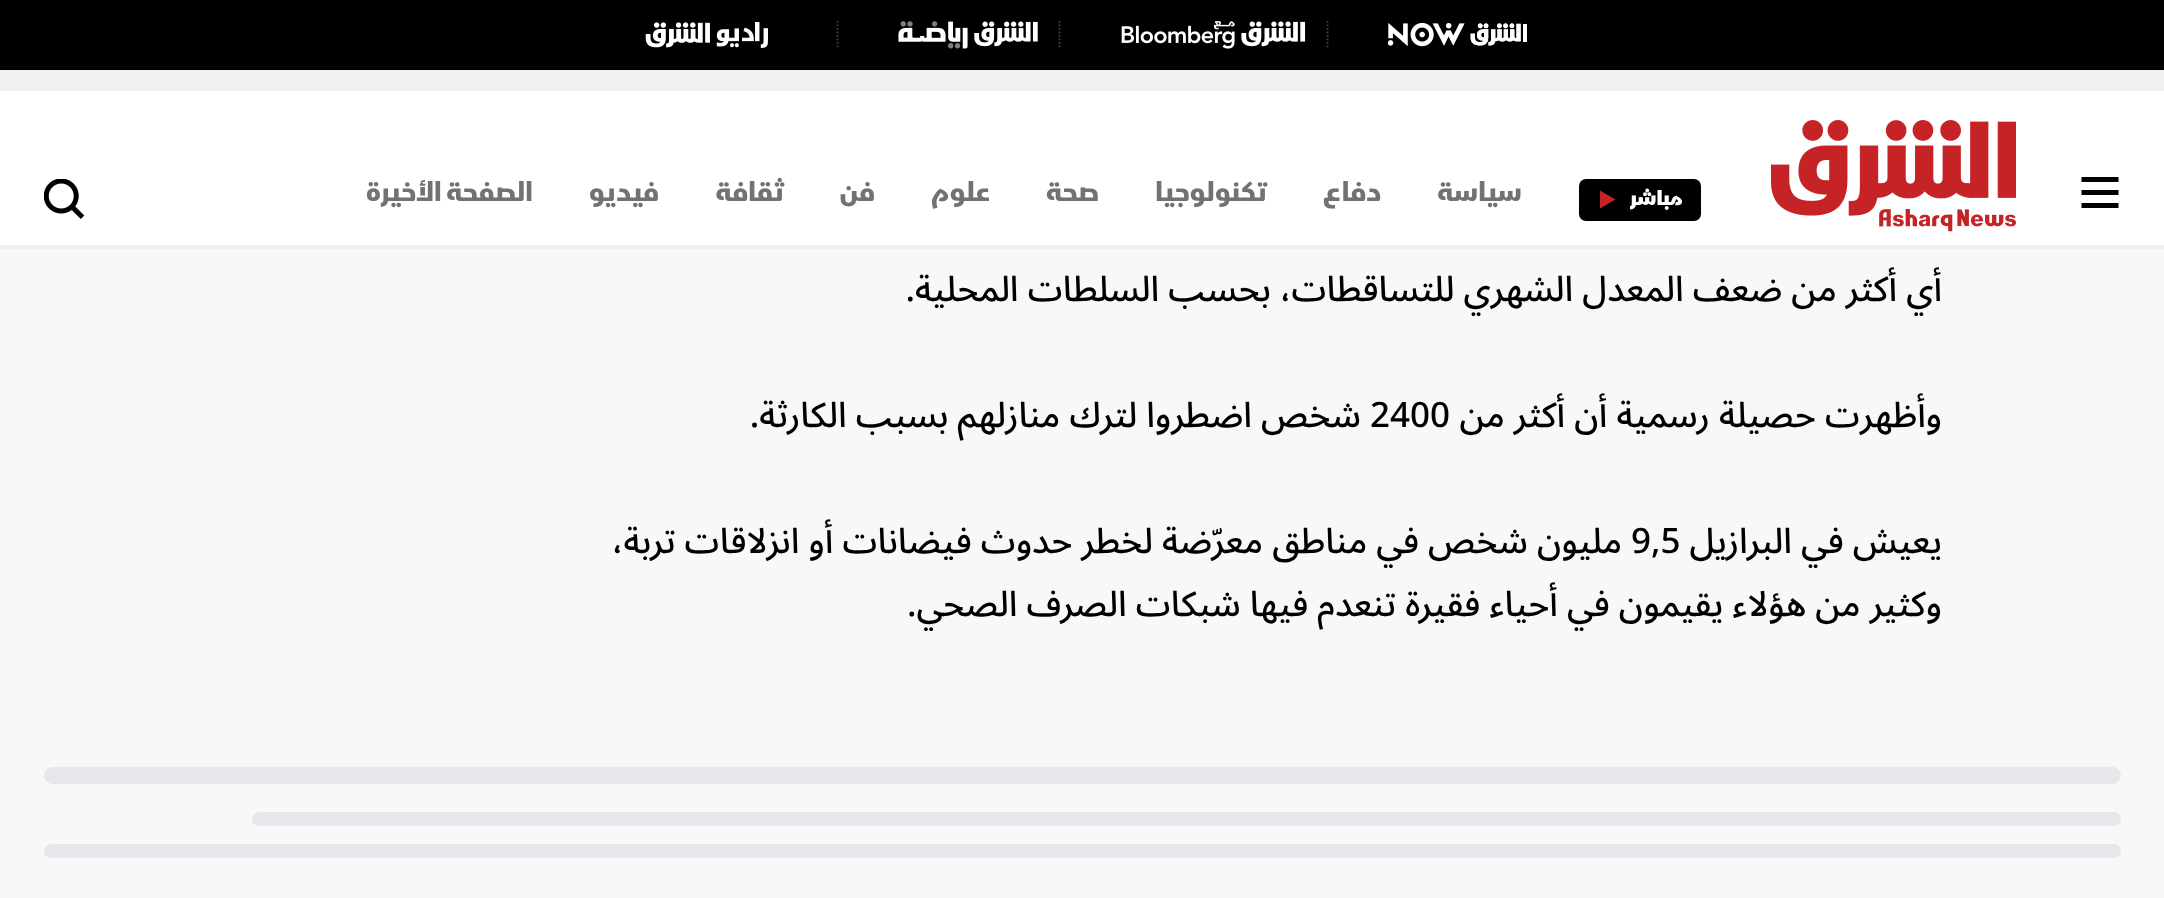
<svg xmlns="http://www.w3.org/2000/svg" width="2164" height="898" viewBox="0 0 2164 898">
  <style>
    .t1 { font: 900 21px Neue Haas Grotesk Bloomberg; direction: rtl; fill: #fff; }
    .t2 { font: bold 28px Neue Haas Grotesk Bloomberg; direction: rtl; fill: #727272; }
    .t3 { font: 500 35px Noto Sans Arabic; direction: rtl; fill: #000; }
    .t4 { font: 500 35px Noto Sans Arabic; fill: #000; }
  </style>
  <rect width="100%" height="100%" fill="#f8f8f8"/>
  <rect x="0" y="91" width="2164" height="154" fill="#fff"/>
  <rect x="0" y="0" width="2164" height="70" fill="#000"/>
  <path d="M1327.5 21V49" fill="none" stroke="#404040" stroke-width="1.8" stroke-dasharray="1.75 1.75"/>
  <image x="1388" y="22" width="139" height="25" href="images/1.png"/>
  <path d="M1059.5 21V49" fill="none" stroke="#404040" stroke-width="1.8" stroke-dasharray="1.75 1.75"/>
  <image x="1121" y="21" width="185" height="28" href="images/2.png"/>
  <path d="M837.5 21V49" fill="none" stroke="#404040" stroke-width="1.8" stroke-dasharray="1.75 1.75"/>
  <image x="898" y="21" width="140" height="28" href="images/3.png"/>
  <image x="645" y="22" width="123" height="26" href="images/4.png"/>
  <rect x="0" y="70" width="2164" height="21" fill="#f0f0f0"/>
  <rect x="0" y="245" width="2164" height="4" fill="#f0f0f0"/>
  <path d="M2081.5 177H2118.5V182H2081.5ZM2081.5 190H2118.5V195H2081.5ZM2081.5 203H2118.5V208H2081.5Z" fill="#000" fill-rule="evenodd"/>
  <image x="1771" y="120" width="245" height="112" href="images/5.png"/>
  <rect x="1579" y="179" width="122" height="42" rx="7" fill="#000"/>
  <text x="1683" y="205" class="t1">مباشر</text>
  <path d="M1600 208.5L1615.5 199.5L1600 190.5Z" fill="#c62326" fill-rule="evenodd"/>
  <text x="1522" y="201" class="t2">سياسة</text>
  <text x="1381" y="201" class="t2">دفاع</text>
  <text x="1267" y="201" class="t2">تكنولوجيا</text>
  <text x="1099" y="201" class="t2">صحة</text>
  <text x="990" y="201" class="t2">علوم</text>
  <text x="875" y="201" class="t2">فن</text>
  <text x="784" y="201" class="t2">ثقافة</text>
  <text x="659" y="201" class="t2">فيديو</text>
  <text x="533" y="201" class="t2">الصفحة الأخيرة</text>
  <image x="44" y="179" width="41" height="40" href="images/6.png"/>
  <text x="1942" y="301" class="t3">أي أكثر من ضعف المعدل الشهري للتساقطات، بحسب السلطات المحلية.</text>
  <text x="1942" y="427" class="t3">وأظهرت حصيلة رسمية أن أكثر من</text>
  <text x="1370" y="427" class="t4">2400</text>
  <text x="1361" y="427" class="t3">شخص اضطروا لترك منازلهم بسبب الكارثة.</text>
  <text x="1942" y="553" class="t3">يعيش في البرازيل</text>
  <text x="1631" y="553" class="t4">9,5</text>
  <text x="1622" y="553" class="t3">مليون شخص في مناطق معرّضة لخطر حدوث فيضانات أو انزلاقات تربة،</text>
  <text x="1942" y="616" class="t3">وكثير من هؤلاء يقيمون في أحياء فقيرة تنعدم فيها شبكات الصرف الصحي.</text>
  <rect x="44" y="767" width="2077" height="17" rx="8.5" fill="#e5e7eb"/>
  <rect x="252" y="812" width="1869" height="14" rx="7" fill="#e5e7eb"/>
  <rect x="44" y="844" width="2077" height="14" rx="7" fill="#e5e7eb"/>
</svg>
